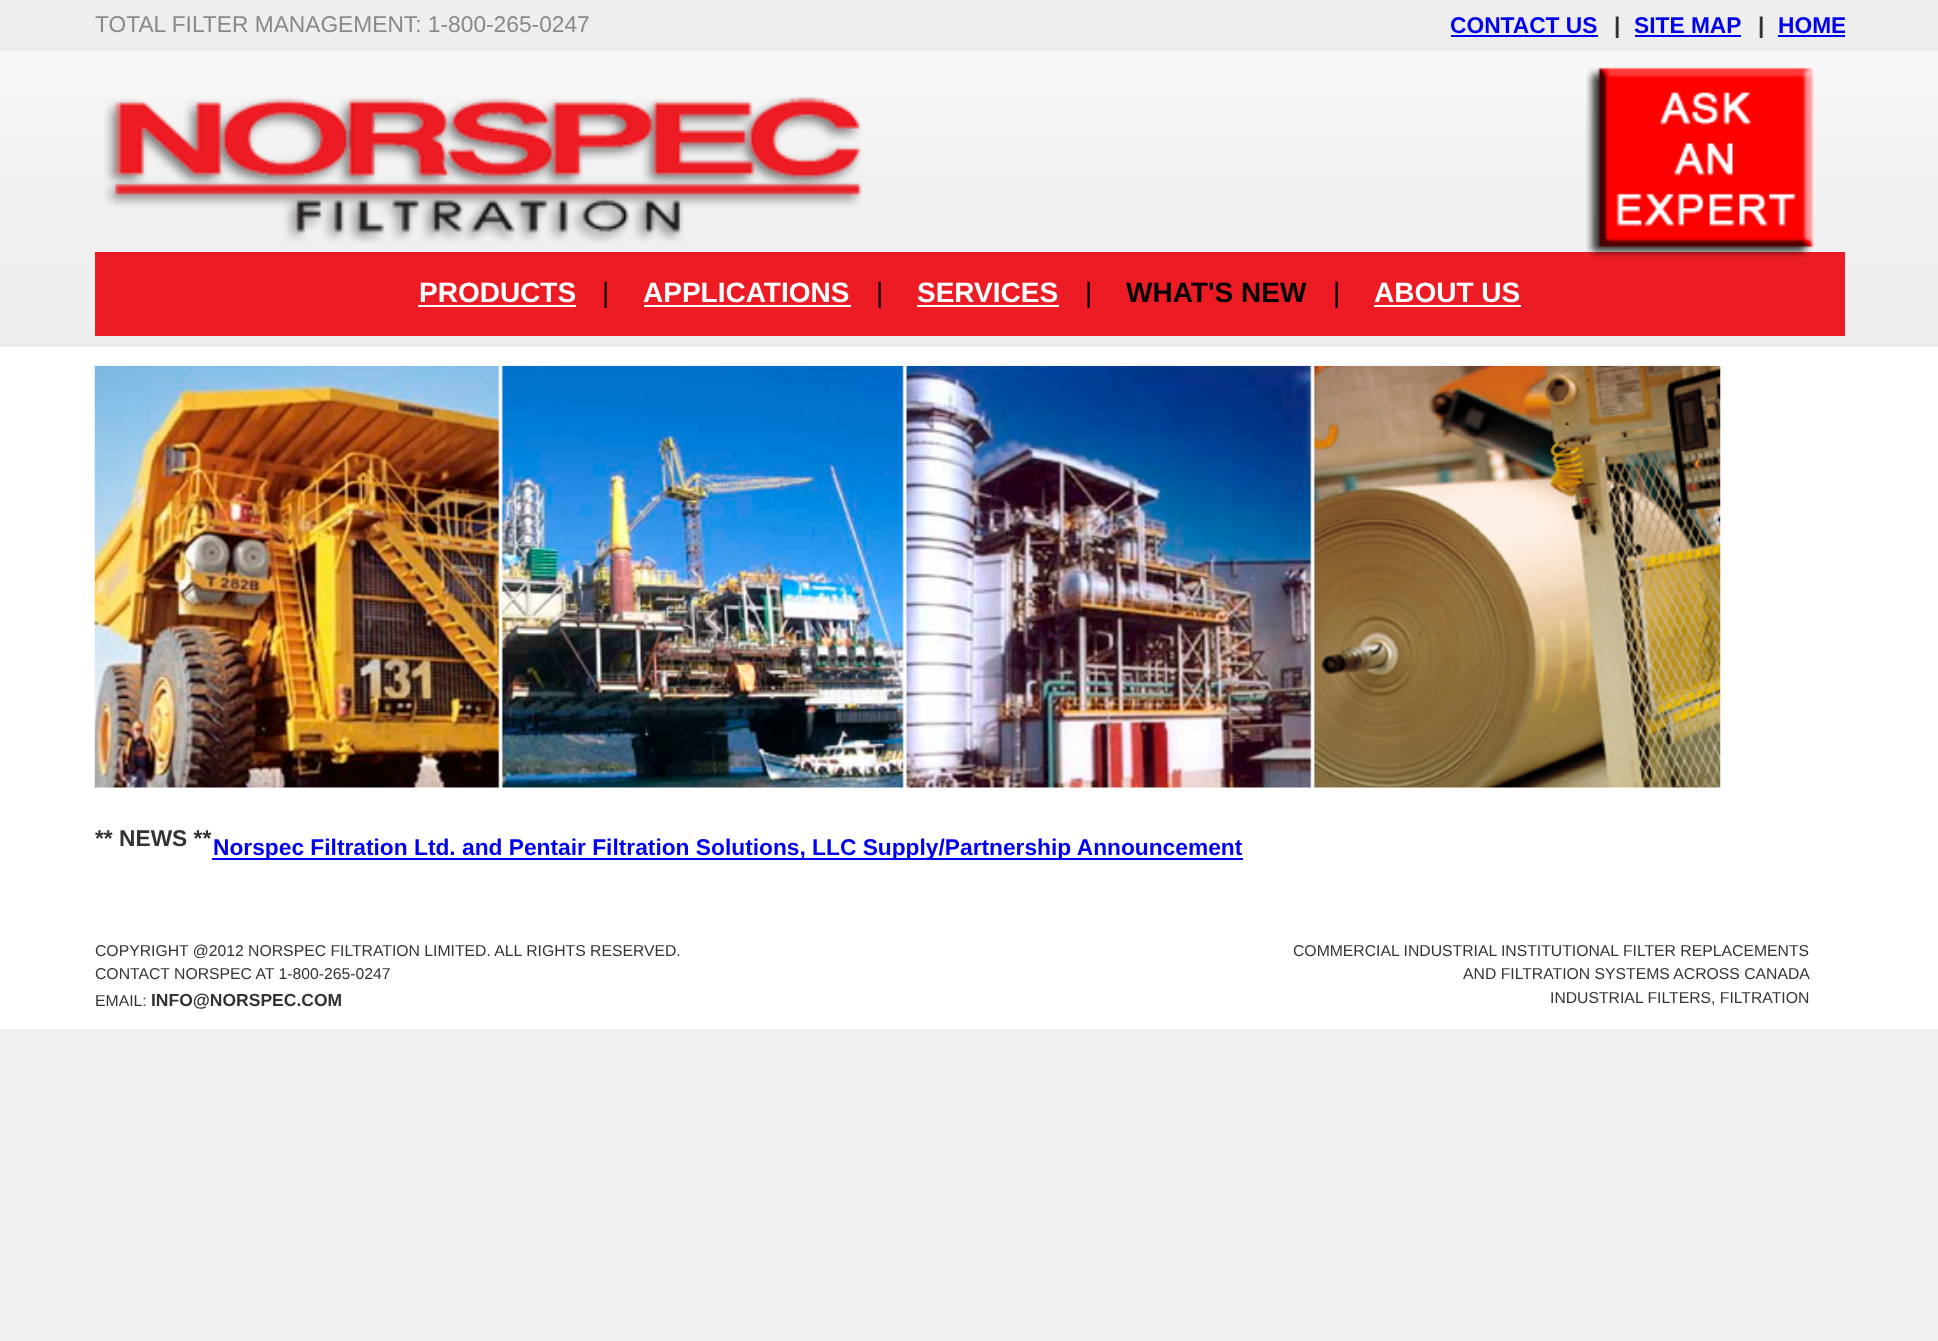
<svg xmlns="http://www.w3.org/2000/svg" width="1938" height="1341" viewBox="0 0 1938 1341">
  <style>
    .t1 { font: 22.75px Liberation Sans; fill: #8b8888; }
    .t2 { font: bold 22.75px Liberation Sans; fill: #00e; }
    .t3 { font: bold 22.75px Liberation Sans; fill: #333; }
    .t4 { font: bold 28px Liberation Sans; fill: #fff; }
    .t5 { font: 28px Liberation Sans; fill: #000; }
    .t6 { font: bold 28px Liberation Sans; fill: #000; }
    .t7 { font: 15.75px Liberation Sans; fill: #333; }
    .t8 { font: bold 17.5px Liberation Sans; fill: #333; }
  </style>
  <defs>
    <clipPath id="clip1"><rect x="95" y="0" width="1750" height="788"/></clipPath>
  </defs>
  <rect width="100%" height="100%" fill="#f1f0f0"/>
  <rect x="0" y="346" width="1938" height="683" fill="#fff"/>
  <image x="0" y="0" width="1938" height="347" href="images/1.png"/>
  <text x="95" y="32" class="t1">TOTAL FILTER MANAGEMENT: 1-800-265-0247</text>
  <text x="1450" y="33" class="t2">CONTACT US</text>
  <rect x="1451" y="35" width="147" height="2" fill="#00e"/>
  <text x="1614" y="33" class="t3">|</text>
  <text x="1634" y="33" class="t2">SITE MAP</text>
  <rect x="1635" y="35" width="106" height="2" fill="#00e"/>
  <text x="1758" y="33" class="t3">|</text>
  <g clip-path="url(#clip1)">
    <text x="1778" y="33" class="t2">HOME</text>
  </g>
  <rect x="1778" y="35" width="67" height="2" fill="#00e"/>
  <image x="104" y="96" width="758" height="148" href="images/2.png"/>
  <rect x="95" y="252" width="1750" height="84" fill="#ed1c24"/>
  <image x="1586" y="67" width="228" height="191" href="images/3.png"/>
  <text x="419" y="302" class="t4">PRODUCTS</text>
  <rect x="418" y="305" width="158" height="2" fill="#fff"/>
  <text x="602" y="302" class="t5">|</text>
  <text x="643" y="302" class="t4">APPLICATIONS</text>
  <rect x="644" y="305" width="207" height="2" fill="#fff"/>
  <text x="876" y="302" class="t5">|</text>
  <text x="917" y="302" class="t4">SERVICES</text>
  <rect x="917" y="305" width="142" height="2" fill="#fff"/>
  <text x="1085" y="302" class="t5">|</text>
  <text x="1126" y="302" class="t6">WHAT'S NEW</text>
  <text x="1333" y="302" class="t5">|</text>
  <text x="1374" y="302" class="t4">ABOUT US</text>
  <rect x="1374" y="305" width="147" height="2" fill="#fff"/>
  <image x="94" y="365" width="1627" height="423" href="images/4.png"/>
  <text x="95" y="846" class="t3">** NEWS **</text>
  <rect x="212" y="858" width="1031" height="2" fill="#00e"/>
  <text x="213" y="855" class="t2">Norspec Filtration Ltd. and Pentair Filtration Solutions, LLC Supply/Partnership Announcement</text>
  <text x="95" y="956" class="t7">COPYRIGHT @2012 NORSPEC FILTRATION LIMITED. ALL RIGHTS RESERVED.</text>
  <text x="95" y="979" class="t7">CONTACT NORSPEC AT 1-800-265-0247</text>
  <text x="95" y="1006" class="t7">EMAIL:</text>
  <text x="151" y="1006" class="t8">INFO@NORSPEC.COM</text>
  <text x="1293" y="956" class="t7">COMMERCIAL INDUSTRIAL INSTITUTIONAL FILTER REPLACEMENTS</text>
  <text x="1463" y="979" class="t7">AND FILTRATION SYSTEMS ACROSS CANADA</text>
  <text x="1550" y="1003" class="t7">INDUSTRIAL FILTERS, FILTRATION</text>
</svg>
